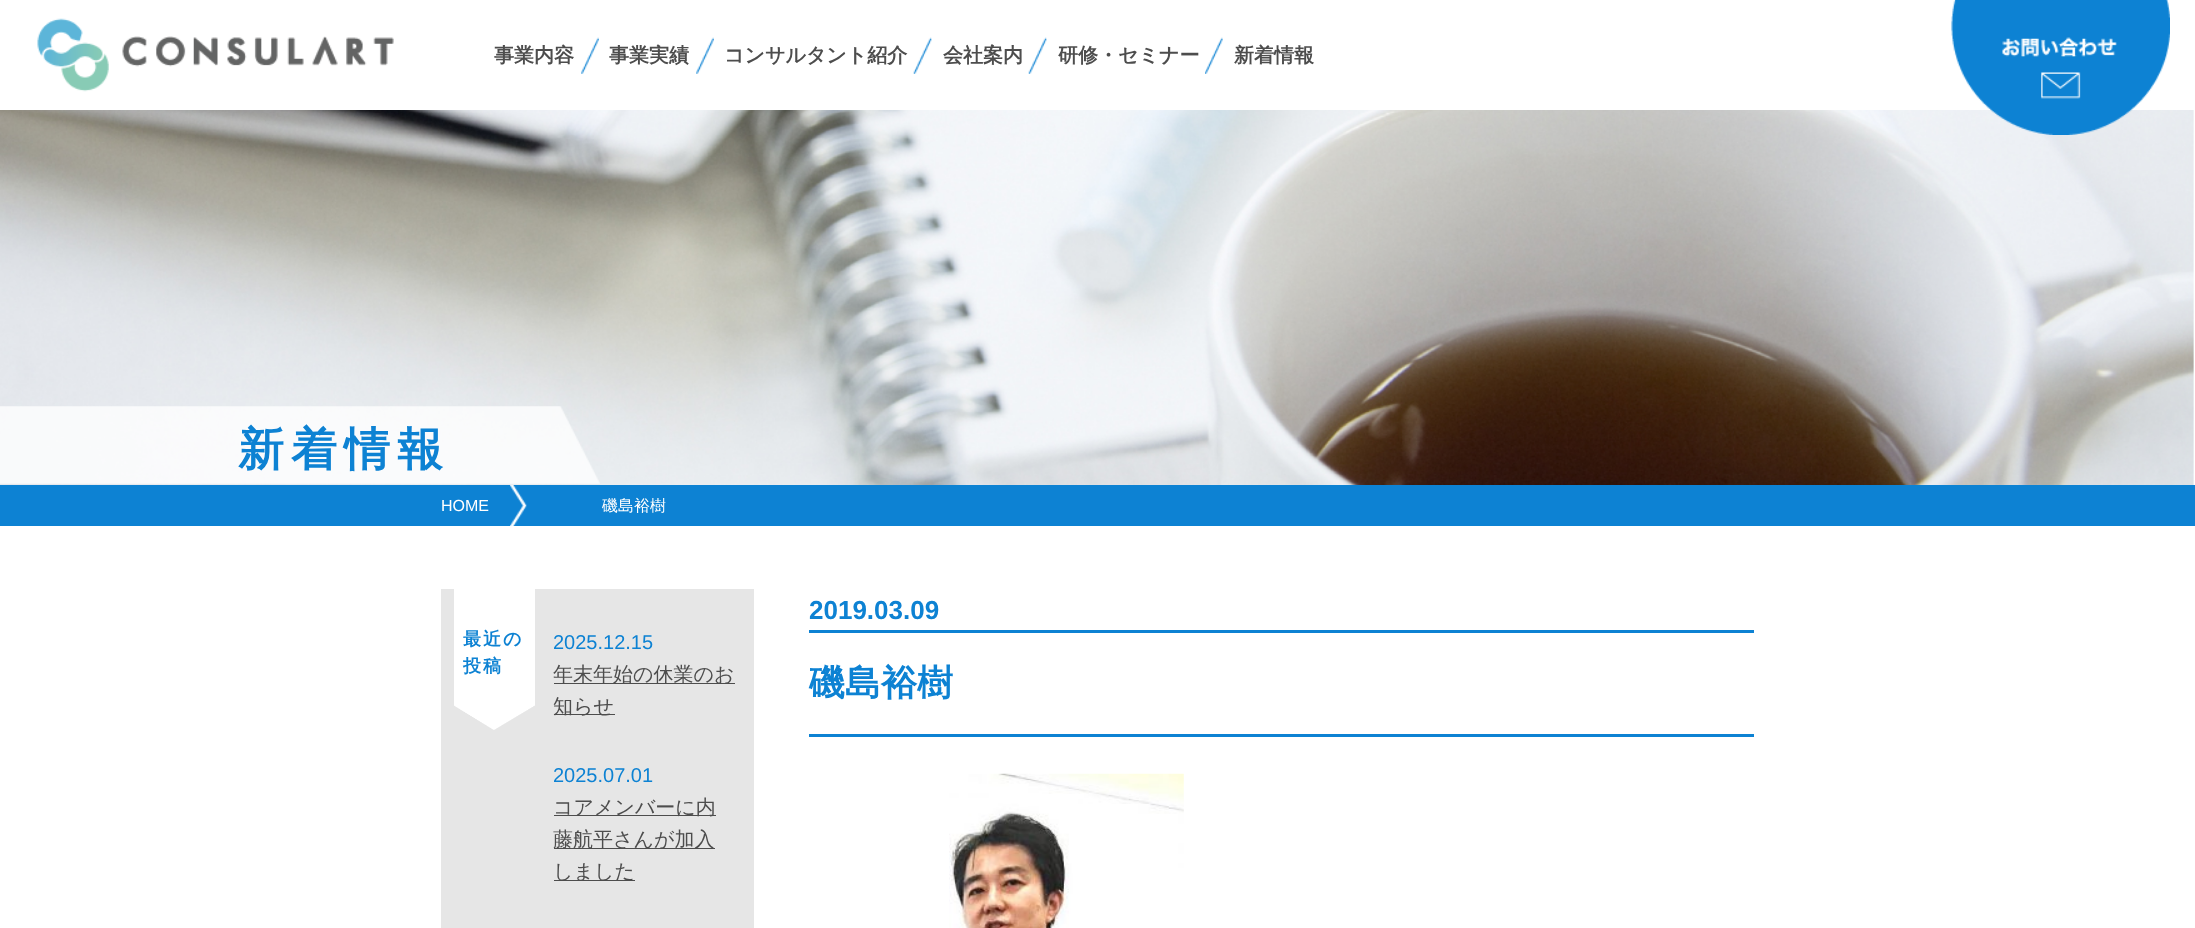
<svg xmlns="http://www.w3.org/2000/svg" width="2195" height="928" viewBox="0 0 2195 928">
  <style>
    .t1 { font: bold 20px WenQuanYi Zen Hei; fill: #4d4d4d; }
    .t2 { font: bold 46px WenQuanYi Zen Hei; letter-spacing: 7px; fill: #0d82d3; }
    .t3 { font: 16px Liberation Sans; fill: #fff; }
    .t4 { font: 500 16px WenQuanYi Zen Hei; fill: #fff; }
    .t5 { font: bold 18px WenQuanYi Zen Hei; letter-spacing: 2px; fill: #0d82d3; }
    .t6 { font: 20px Liberation Sans; fill: #0d82d3; }
    .t7 { font: 500 20px WenQuanYi Zen Hei; fill: #4d4d4d; }
    .t8 { font: bold 26px Liberation Sans; fill: #0d82d3; }
    .t9 { font: bold 36px WenQuanYi Zen Hei; fill: #0d82d3; }
  </style>
  <rect width="100%" height="100%" fill="#fff"/>
  <image x="37" y="18" width="357" height="74" href="images/1.png"/>
  <image x="581" y="37" width="18" height="37" href="images/2.png"/>
  <text x="494" y="62" class="t1">事業内容</text>
  <image x="696" y="37" width="18" height="37" href="images/2.png"/>
  <text x="609" y="62" class="t1">事業実績</text>
  <image x="913" y="37" width="19" height="37" href="images/3.png"/>
  <text x="724" y="62" class="t1">コンサルタント紹介</text>
  <image x="1028" y="37" width="19" height="37" href="images/4.png"/>
  <text x="943" y="62" class="t1">会社案内</text>
  <image x="1205" y="37" width="18" height="37" href="images/5.png"/>
  <text x="1058" y="62" class="t1">研修・セミナー</text>
  <text x="1234" y="62" class="t1">新着情報</text>
  <image x="0" y="110" width="2194" height="375" href="images/7.png"/>
  <image x="1951" y="0" width="219" height="135" href="images/6.png"/>
  <image x="0" y="406" width="600" height="78" href="images/8.png"/>
  <text x="238" y="465" class="t2">新着情報</text>
  <rect x="0" y="485" width="2195" height="41" fill="#0d82d3"/>
  <image x="510" y="485" width="17" height="41" href="images/9.png"/>
  <text x="441" y="511" class="t3">HOME</text>
  <text x="602" y="511" class="t4">磯島裕樹</text>
  <rect x="441" y="589" width="313" height="339" fill="#e6e6e6"/>
  <rect x="454" y="589" width="81" height="116" fill="#fff"/>
  <text x="463" y="645" class="t5">最近の</text>
  <text x="463" y="672" class="t5">投稿</text>
  <image x="454" y="705" width="81" height="25" href="images/10.png"/>
  <text x="553" y="649" class="t6">2025.12.15</text>
  <rect x="554" y="683" width="181" height="1" fill="#4d4d4d"/>
  <text x="553" y="681" class="t7">年末年始の休業のお</text>
  <rect x="554" y="714" width="61" height="1" fill="#4d4d4d"/>
  <text x="553" y="713" class="t7">知らせ</text>
  <text x="553" y="782" class="t6">2025.07.01</text>
  <rect x="554" y="815" width="162" height="1" fill="#4d4d4d"/>
  <text x="553" y="814" class="t7">コアメンバーに内</text>
  <rect x="554" y="848" width="161" height="1" fill="#4d4d4d"/>
  <text x="553" y="846" class="t7">藤航平さんが加入</text>
  <rect x="554" y="880" width="81" height="1" fill="#4d4d4d"/>
  <text x="553" y="878" class="t7">しました</text>
  <text x="809" y="619" class="t8">2019.03.09</text>
  <rect x="809" y="630" width="945" height="3" fill="#0d82d3"/>
  <rect x="809" y="734" width="945" height="3" fill="#0d82d3"/>
  <text x="809" y="695" class="t9">磯島裕樹</text>
  <image x="949" y="773" width="235" height="155" href="images/11.png"/>
</svg>
